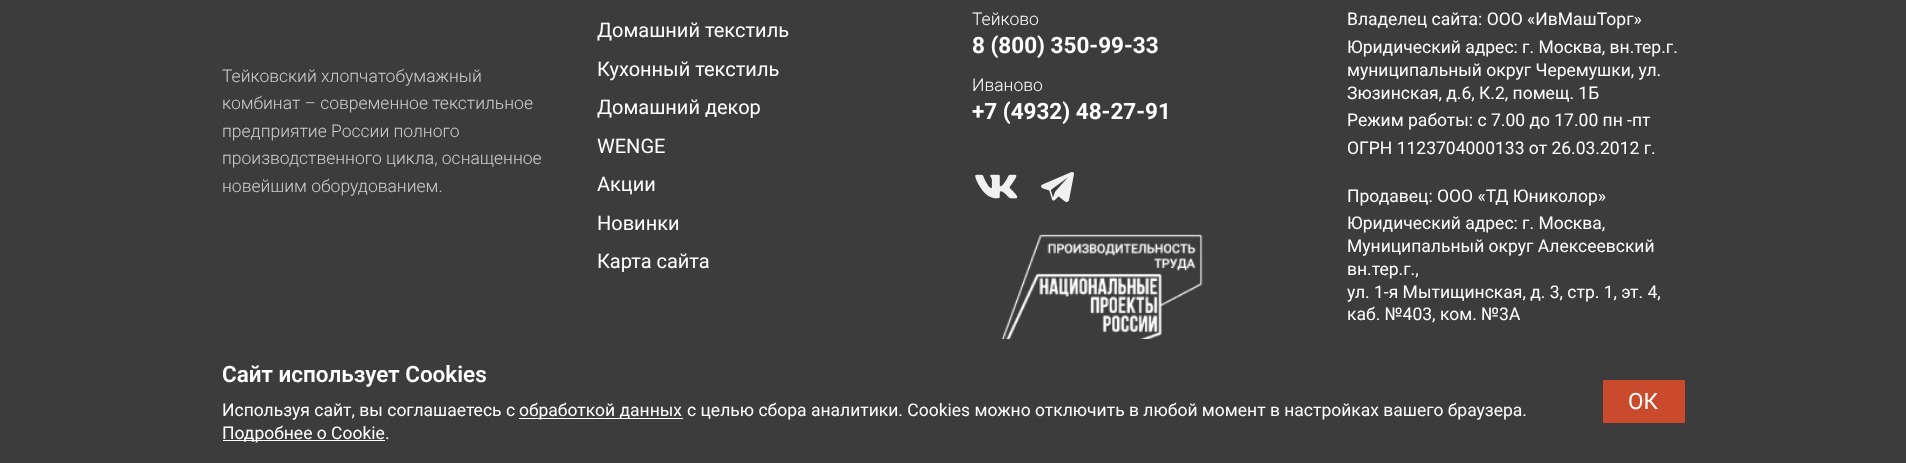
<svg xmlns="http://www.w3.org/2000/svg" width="1906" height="463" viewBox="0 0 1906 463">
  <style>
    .t1 { font: 300 17.5px Roboto; fill: #cecece; }
    .t2 { font: 20px Roboto; fill: #fff; }
    .t3 { font: 300 17.5px Roboto; fill: #fff; }
    .t4 { font: bold 22.5px Roboto; fill: #fff; }
    .t5 { font: 17.5px Roboto; fill: #fff; }
    .t6 { font: 600 22.5px Roboto; fill: #fff; }
    .t7 { font: 22.5px Roboto; fill: #fff; }
  </style>
  <rect width="100%" height="100%" fill="#3b3c3b"/>
  <text x="222" y="82" class="t1">Тейковский хлопчатобумажный</text>
  <text x="222" y="109" class="t1">комбинат – современное текстильное</text>
  <text x="222" y="137" class="t1">предприятие России полного</text>
  <text x="222" y="164" class="t1">производственного цикла, оснащенное</text>
  <text x="222" y="192" class="t1">новейшим оборудованием.</text>
  <text x="597" y="37" class="t2">Домашний текстиль</text>
  <text x="597" y="76" class="t2">Кухонный текстиль</text>
  <text x="597" y="114" class="t2">Домашний декор</text>
  <text x="597" y="153" class="t2">WENGE</text>
  <text x="597" y="191" class="t2">Акции</text>
  <text x="597" y="230" class="t2">Новинки</text>
  <text x="597" y="268" class="t2">Карта сайта</text>
  <text x="972" y="25" class="t3">Тейково</text>
  <text x="972" y="53" class="t4">8 (800) 350-99-33</text>
  <text x="972" y="91" class="t3">Иваново</text>
  <text x="972" y="119" class="t4">+7 (4932) 48-27-91</text>
  <image x="975" y="174" width="43" height="25" href="images/1.png"/>
  <image x="1041" y="172" width="33" height="30" href="images/2.png"/>
  <image x="1001" y="234" width="202" height="105" href="images/3.png"/>
  <text x="1347" y="25" class="t5">Владелец сайта: ООО «ИвМашТорг»</text>
  <text x="1347" y="53" class="t5">Юридический адрес: г. Москва, вн.тер.г.</text>
  <text x="1347" y="76" class="t5">муниципальный округ Черемушки, ул.</text>
  <text x="1347" y="99" class="t5">Зюзинская, д.6, К.2, помещ. 1Б</text>
  <text x="1347" y="126" class="t5">Режим работы: с 7.00 до 17.00 пн -пт</text>
  <text x="1347" y="154" class="t5">ОГРН 1123704000133 от 26.03.2012 г.</text>
  <text x="1347" y="202" class="t5">Продавец: ООО «ТД Юниколор»</text>
  <text x="1347" y="229" class="t5">Юридический адрес: г. Москва,</text>
  <text x="1347" y="252" class="t5">Муниципальный округ Алексеевский</text>
  <text x="1347" y="275" class="t5">вн.тер.г.,</text>
  <text x="1347" y="298" class="t5">ул. 1-я Мытищинская, д. 3, стр. 1, эт. 4,</text>
  <text x="1347" y="320" class="t5">каб. №403, ком. №3А</text>
  <text x="222" y="382" class="t6">Сайт использует Cookies</text>
  <text x="222" y="416" class="t5">Используя сайт, вы соглашаетесь с</text>
  <rect x="519" y="418" width="164" height="1" fill="#fff"/>
  <text x="519" y="416" class="t5">обработкой данных</text>
  <text x="687" y="416" class="t5">с целью сбора аналитики. Cookies можно отключить в любой момент в настройках вашего браузера.</text>
  <rect x="223" y="440" width="162" height="1" fill="#fff"/>
  <text x="222" y="439" class="t5">Подробнее о Cookie</text>
  <text x="385" y="439" class="t5">.</text>
  <rect x="1603" y="380" width="82" height="43" fill="#ca4a2d"/>
  <text x="1628" y="409" class="t7">ОК</text>
</svg>
